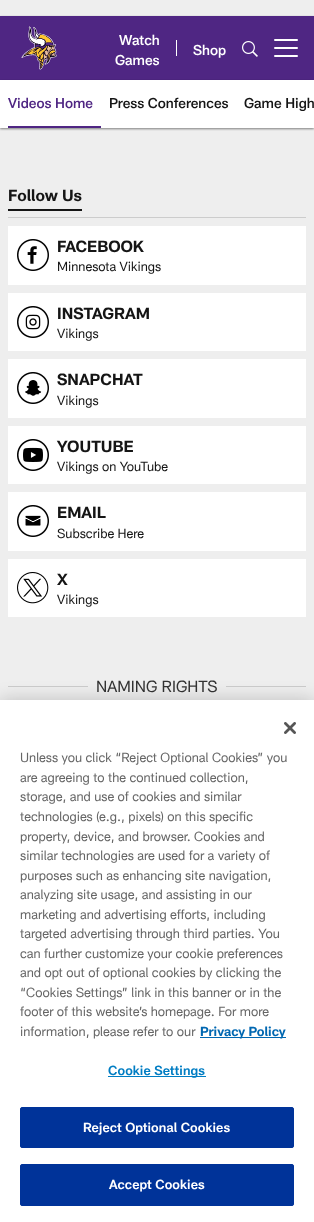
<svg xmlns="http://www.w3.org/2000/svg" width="314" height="1222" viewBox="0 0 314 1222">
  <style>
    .t1 { font: 500 14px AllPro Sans; fill: #fff; }
    .t2 { font: 500 14px AllPro Sans; fill: #4f2683; }
    .t3 { font: 500 14px AllPro Sans; fill: #151515; }
    .t4 { font: bold 16px AllPro Sans; fill: #151515; }
    .t5 { font: 13px AllPro Sans; fill: #151515; }
    .t6 { font: 16px AllPro Sans; fill: #333; }
    .t7 { font: 13px AllPro Sans; fill: #666; }
    .t8 { font: bold 13px AllPro Sans; fill: #0067b1; }
    .t9 { font: 600 13px AllPro Sans; letter-spacing: 0.1px; fill: #007dc3; }
    .t10 { font: 600 13px AllPro Sans; letter-spacing: 0.1px; fill: #fff; }
  </style>
  <rect width="100%" height="100%" fill="#eee"/>
  <rect x="0" y="17" width="314" height="64" fill="#00000078" filter="blur(1px)"/>
  <rect x="0" y="16" width="314" height="64" fill="#4f2683"/>
  <image x="21" y="26" width="36" height="44" href="images/1.png"/>
  <text x="119" y="45" class="t1">Watch</text>
  <text x="115" y="65" class="t1">Games</text>
  <rect x="176" y="40" width="1" height="16" fill="#fff"/>
  <text x="193" y="55" class="t1">Shop</text>
  <image x="242" y="41" width="16" height="16" href="images/2.png"/>
  <rect x="274" y="47" width="24" height="2" rx="1" fill="#fff"/>
  <rect x="274" y="39" width="24" height="2" rx="1" fill="#fff"/>
  <rect x="274" y="55" width="24" height="2" rx="1" fill="#fff"/>
  <rect x="0" y="81" width="314" height="48" fill="#00000078" filter="blur(1px)"/>
  <rect x="0" y="80" width="314" height="48" fill="#fff"/>
  <rect x="8" y="126" width="93" height="2" fill="#4f2683"/>
  <text x="8" y="108" class="t2">Videos Home</text>
  <text x="109" y="108" class="t3">Press Conferences</text>
  <text x="244" y="108" class="t3">Game High</text>
  <rect x="8" y="217" width="298" height="1" fill="#ccc"/>
  <rect x="8" y="209" width="74" height="2" fill="#151515"/>
  <text x="8" y="201" class="t4">Follow Us</text>
  <rect x="8" y="226" width="298" height="59" fill="#fff"/>
  <image x="17" y="239" width="32" height="32" href="images/3.png"/>
  <text x="57" y="252" class="t4">FACEBOOK</text>
  <text x="57" y="271" class="t5">Minnesota Vikings</text>
  <rect x="8" y="293" width="298" height="58" fill="#fff"/>
  <image x="17" y="306" width="32" height="32" href="images/4.png"/>
  <text x="57" y="319" class="t4">INSTAGRAM</text>
  <text x="57" y="338" class="t5">Vikings</text>
  <rect x="8" y="359" width="298" height="59" fill="#fff"/>
  <image x="17" y="372" width="32" height="32" href="images/5.png"/>
  <text x="57" y="385" class="t4">SNAPCHAT</text>
  <text x="57" y="405" class="t5">Vikings</text>
  <rect x="8" y="426" width="298" height="58" fill="#fff"/>
  <image x="17" y="439" width="32" height="32" href="images/6.png"/>
  <text x="57" y="452" class="t4">YOUTUBE</text>
  <text x="57" y="471" class="t5">Vikings on YouTube</text>
  <rect x="8" y="492" width="298" height="59" fill="#fff"/>
  <image x="17" y="505" width="32" height="32" href="images/7.png"/>
  <text x="57" y="518" class="t4">EMAIL</text>
  <text x="57" y="538" class="t5">Subscribe Here</text>
  <rect x="8" y="559" width="298" height="58" fill="#fff"/>
  <image x="17" y="572" width="32" height="32" href="images/8.png"/>
  <text x="57" y="585" class="t4">X</text>
  <text x="57" y="604" class="t5">Vikings</text>
  <rect x="8" y="686" width="80" height="1" fill="#ccc"/>
  <text x="96" y="692" class="t6">NAMING RIGHTS</text>
  <rect x="226" y="686" width="80" height="1" fill="#ccc"/>
  <rect x="0" y="700" width="314" height="522" fill="#00000033" filter="blur(9px)"/>
  <rect x="0" y="700" width="314" height="522" fill="#fff"/>
  <image x="284" y="722" width="12" height="12" href="images/9.png"/>
  <text x="20" y="762" class="t7">Unless you click “Reject Optional Cookies” you</text>
  <text x="20" y="782" class="t7">are agreeing to the continued collection,</text>
  <text x="20" y="801" class="t7">storage, and use of cookies and similar</text>
  <text x="20" y="821" class="t7">technologies (e.g., pixels) on this specific</text>
  <text x="20" y="841" class="t7">property, device, and browser. Cookies and</text>
  <text x="20" y="860" class="t7">similar technologies are used for a variety of</text>
  <text x="20" y="880" class="t7">purposes such as enhancing site navigation,</text>
  <text x="20" y="899" class="t7">analyzing site usage, and assisting in our</text>
  <text x="20" y="919" class="t7">marketing and advertising efforts, including</text>
  <text x="20" y="938" class="t7">targeted advertising through third parties. You</text>
  <text x="20" y="958" class="t7">can further customize your cookie preferences</text>
  <text x="20" y="977" class="t7">and opt out of optional cookies by clicking the</text>
  <text x="20" y="997" class="t7">“Cookies Settings” link in this banner or in the</text>
  <text x="20" y="1016" class="t7">footer of this website’s homepage. For more</text>
  <text x="20" y="1036" class="t7">information, please refer to our</text>
  <rect x="200" y="1037" width="86" height="1" fill="#0067b1"/>
  <text x="200" y="1036" class="t8">Privacy Policy</text>
  <rect x="108" y="1076" width="98" height="1" fill="#007dc3"/>
  <text x="108" y="1075" class="t9">Cookie Settings</text>
  <rect x="20.5" y="1107.5" width="273" height="40" rx="1.5" fill="#039" stroke="#039"/>
  <text x="83" y="1132" class="t10">Reject Optional Cookies</text>
  <rect x="20.5" y="1164.5" width="273" height="41" rx="1.5" fill="#039" stroke="#039"/>
  <text x="109" y="1189" class="t10">Accept Cookies</text>
</svg>
